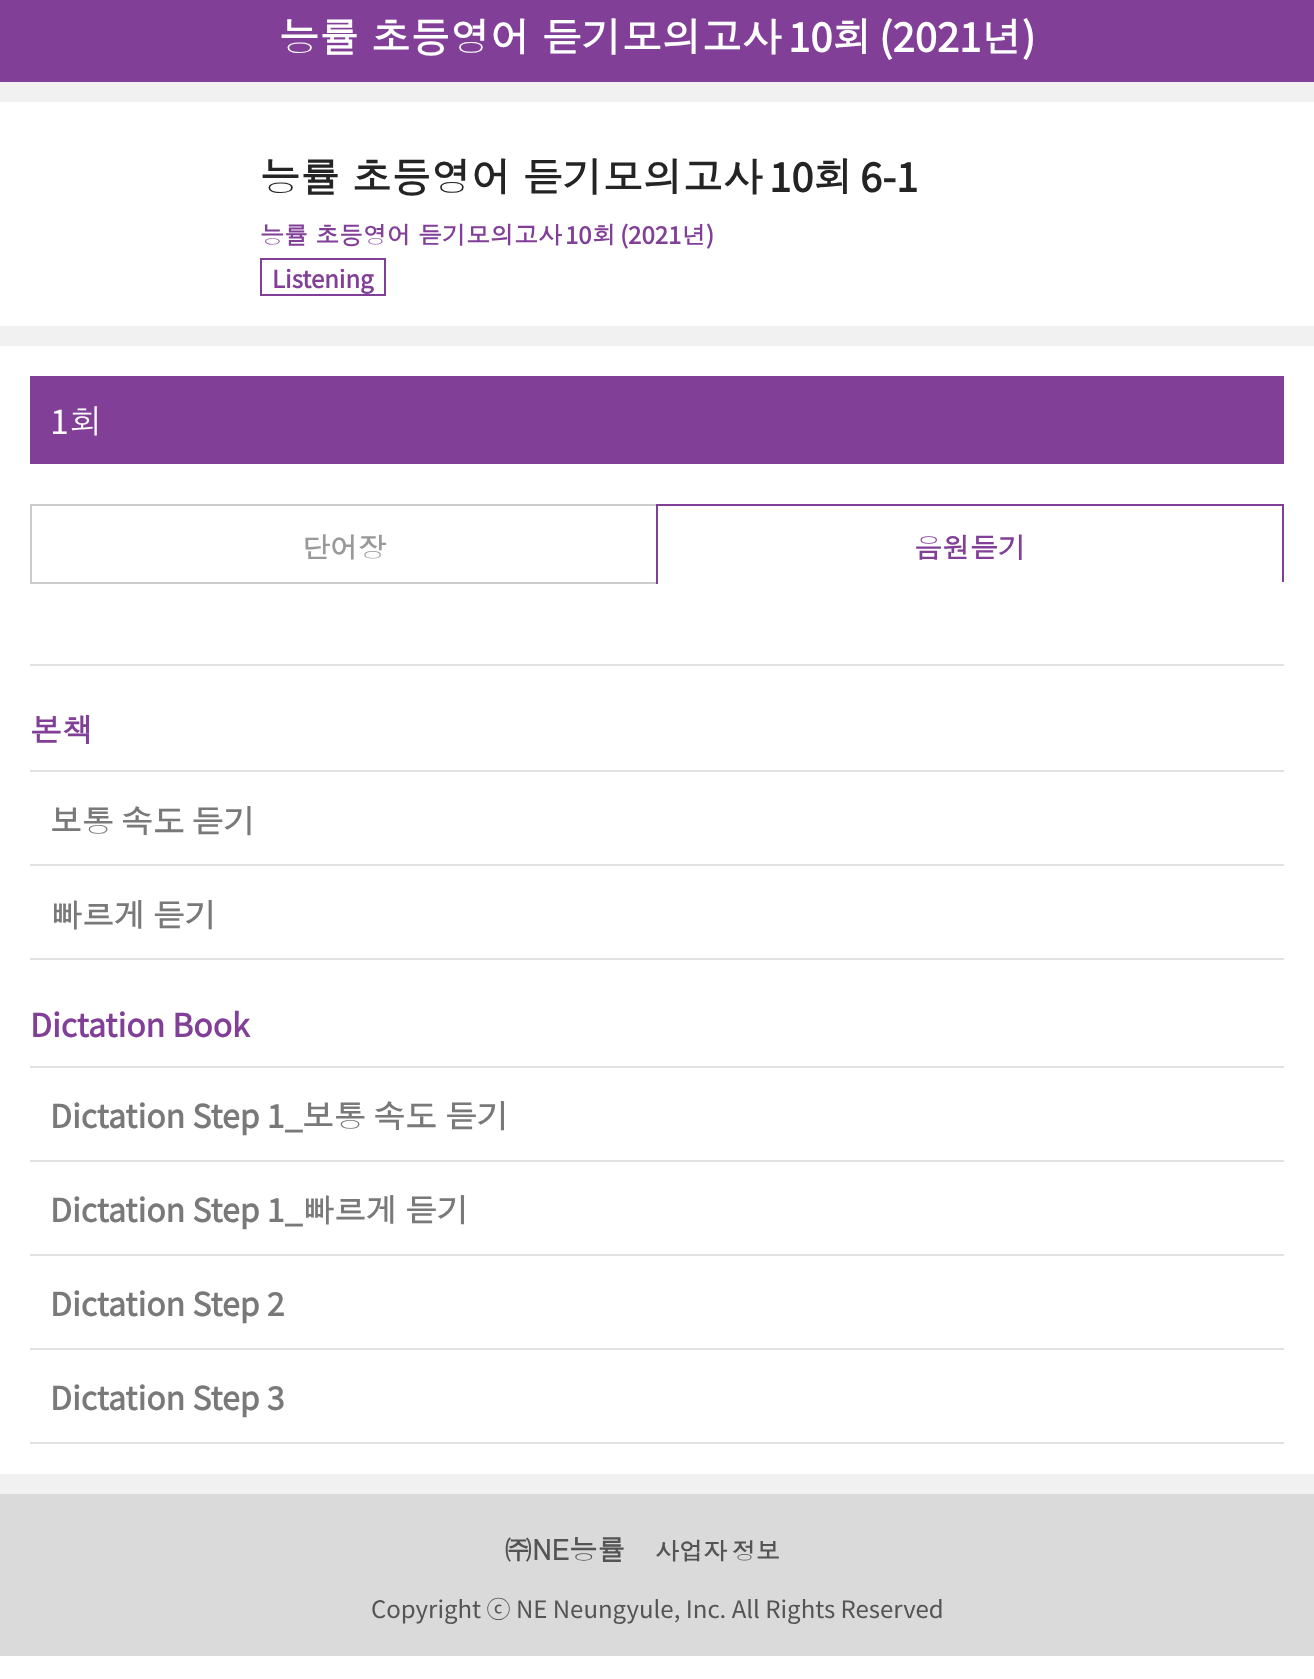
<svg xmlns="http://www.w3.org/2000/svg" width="1314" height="1679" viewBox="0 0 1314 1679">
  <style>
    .t1 { font: bold 40px Dotum; fill: #fff; }
    .t2 { font: bold 40px Noto Sans SC; fill: #fff; }
    .t3 { font: bold 40px Dotum; fill: #242424; }
    .t4 { font: bold 40px Noto Sans SC; fill: #242424; }
    .t5 { font: bold 24px Dotum; fill: #823f98; }
    .t6 { font: bold 24px Noto Sans SC; fill: #823f98; }
    .t7 { font: 100 34px Noto Sans SC; fill: #fff; }
    .t8 { font: 34px Dotum; fill: #fff; }
    .t9 { font: bold 28px Dotum; fill: #999; }
    .t10 { font: bold 28px Dotum; fill: #823f98; }
    .t11 { font: bold 32px Dotum; fill: #823f98; }
    .t12 { font: bold 32px Dotum; fill: #797979; }
    .t13 { font: bold 32px Noto Sans SC; fill: #823f98; }
    .t14 { font: bold 32px Noto Sans SC; fill: #797979; }
    .t15 { font: bold 28px Dotum; fill: #545454; }
    .t16 { font: bold 24px Dotum; fill: #545454; }
    .t17 { font: 100 24px Noto Sans SC; fill: #545454; }
  </style>
  <rect width="100%" height="100%" fill="#fff"/>
  <rect x="0" y="0" width="1314" height="82" fill="#823f98"/>
  <text x="279" y="52" word-spacing="-2" class="t1">능률 초등영어 듣기모의고사</text>
  <text x="788" y="52" class="t2">10</text>
  <text x="832" y="52" class="t1">회</text>
  <text x="879" y="52" class="t2">(2021</text>
  <text x="982" y="52" class="t1">년</text>
  <text x="1022" y="52" class="t2">)</text>
  <rect x="0" y="82" width="1314" height="20" fill="#f1f1f1"/>
  <rect x="0" y="326" width="1314" height="20" fill="#f1f1f1"/>
  <text x="260" y="192" word-spacing="-2" class="t3">능률 초등영어 듣기모의고사</text>
  <text x="769" y="192" class="t4">10</text>
  <text x="813" y="192" class="t3">회</text>
  <text x="860" y="192" class="t4">6-1</text>
  <text x="260" y="244" word-spacing="-1" class="t5">능률 초등영어 듣기모의고사</text>
  <text x="565" y="244" class="t6">10</text>
  <text x="592" y="244" class="t5">회</text>
  <text x="620" y="244" class="t6">(2021</text>
  <text x="682" y="244" class="t5">년</text>
  <text x="706" y="244" class="t6">)</text>
  <rect x="261" y="259" width="124" height="36" fill="none" stroke="#823f98" stroke-width="2"/>
  <text x="272" y="288" class="t6">Listening</text>
  <rect x="0" y="1474" width="1314" height="20" fill="#f1f1f1"/>
  <rect x="30" y="376" width="1254" height="88" fill="#823f98"/>
  <text x="50" y="434" class="t7">1</text>
  <text x="69" y="434" class="t8">회</text>
  <rect x="31" y="505" width="626" height="78" fill="none" stroke="#ccc" stroke-width="2"/>
  <text x="302" y="558" class="t9">단어장</text>
  <rect x="656" y="504" width="628" height="2" fill="#823f98"/>
  <rect x="1282" y="504" width="2" height="80" fill="#823f98"/>
  <rect x="656" y="582" width="628" height="2" fill="#fff"/>
  <rect x="656" y="504" width="2" height="80" fill="#823f98"/>
  <text x="914" y="558" class="t10">음원듣기</text>
  <rect x="30" y="664" width="1254" height="2" fill="#e1e1e1"/>
  <rect x="30" y="770" width="1254" height="2" fill="#e1e1e1"/>
  <text x="30" y="742" class="t11">본책</text>
  <rect x="30" y="864" width="1254" height="2" fill="#e1e1e1"/>
  <text x="50" y="833" word-spacing="-4" class="t12">보통 속도 듣기</text>
  <rect x="30" y="958" width="1254" height="2" fill="#e1e1e1"/>
  <text x="50" y="927" word-spacing="-4" class="t12">빠르게 듣기</text>
  <rect x="30" y="1066" width="1254" height="2" fill="#e1e1e1"/>
  <text x="30" y="1037" class="t13">Dictation Book</text>
  <rect x="30" y="1160" width="1254" height="2" fill="#e1e1e1"/>
  <text x="50" y="1128" class="t14">Dictation Step 1_</text>
  <text x="302" y="1128" class="t12">보통</text>
  <text x="373" y="1128" class="t12">속도</text>
  <text x="445" y="1128" class="t12">듣기</text>
  <rect x="30" y="1254" width="1254" height="2" fill="#e1e1e1"/>
  <text x="50" y="1222" class="t14">Dictation Step 1_</text>
  <text x="302" y="1222" class="t12">빠르게</text>
  <text x="405" y="1222" class="t12">듣기</text>
  <rect x="30" y="1348" width="1254" height="2" fill="#e1e1e1"/>
  <text x="50" y="1316" class="t14">Dictation Step 2</text>
  <rect x="30" y="1442" width="1254" height="2" fill="#e1e1e1"/>
  <text x="50" y="1410" class="t14">Dictation Step 3</text>
  <rect x="0" y="1494" width="1314" height="162" fill="#dadada"/>
  <text x="504" y="1560" class="t15">㈜NE능률</text>
  <text x="655" y="1560" word-spacing="-3" class="t16">사업자 정보</text>
  <text x="371" y="1618" class="t17">Copyright ⓒ NE Neungyule, Inc. All Rights Reserved</text>
</svg>
